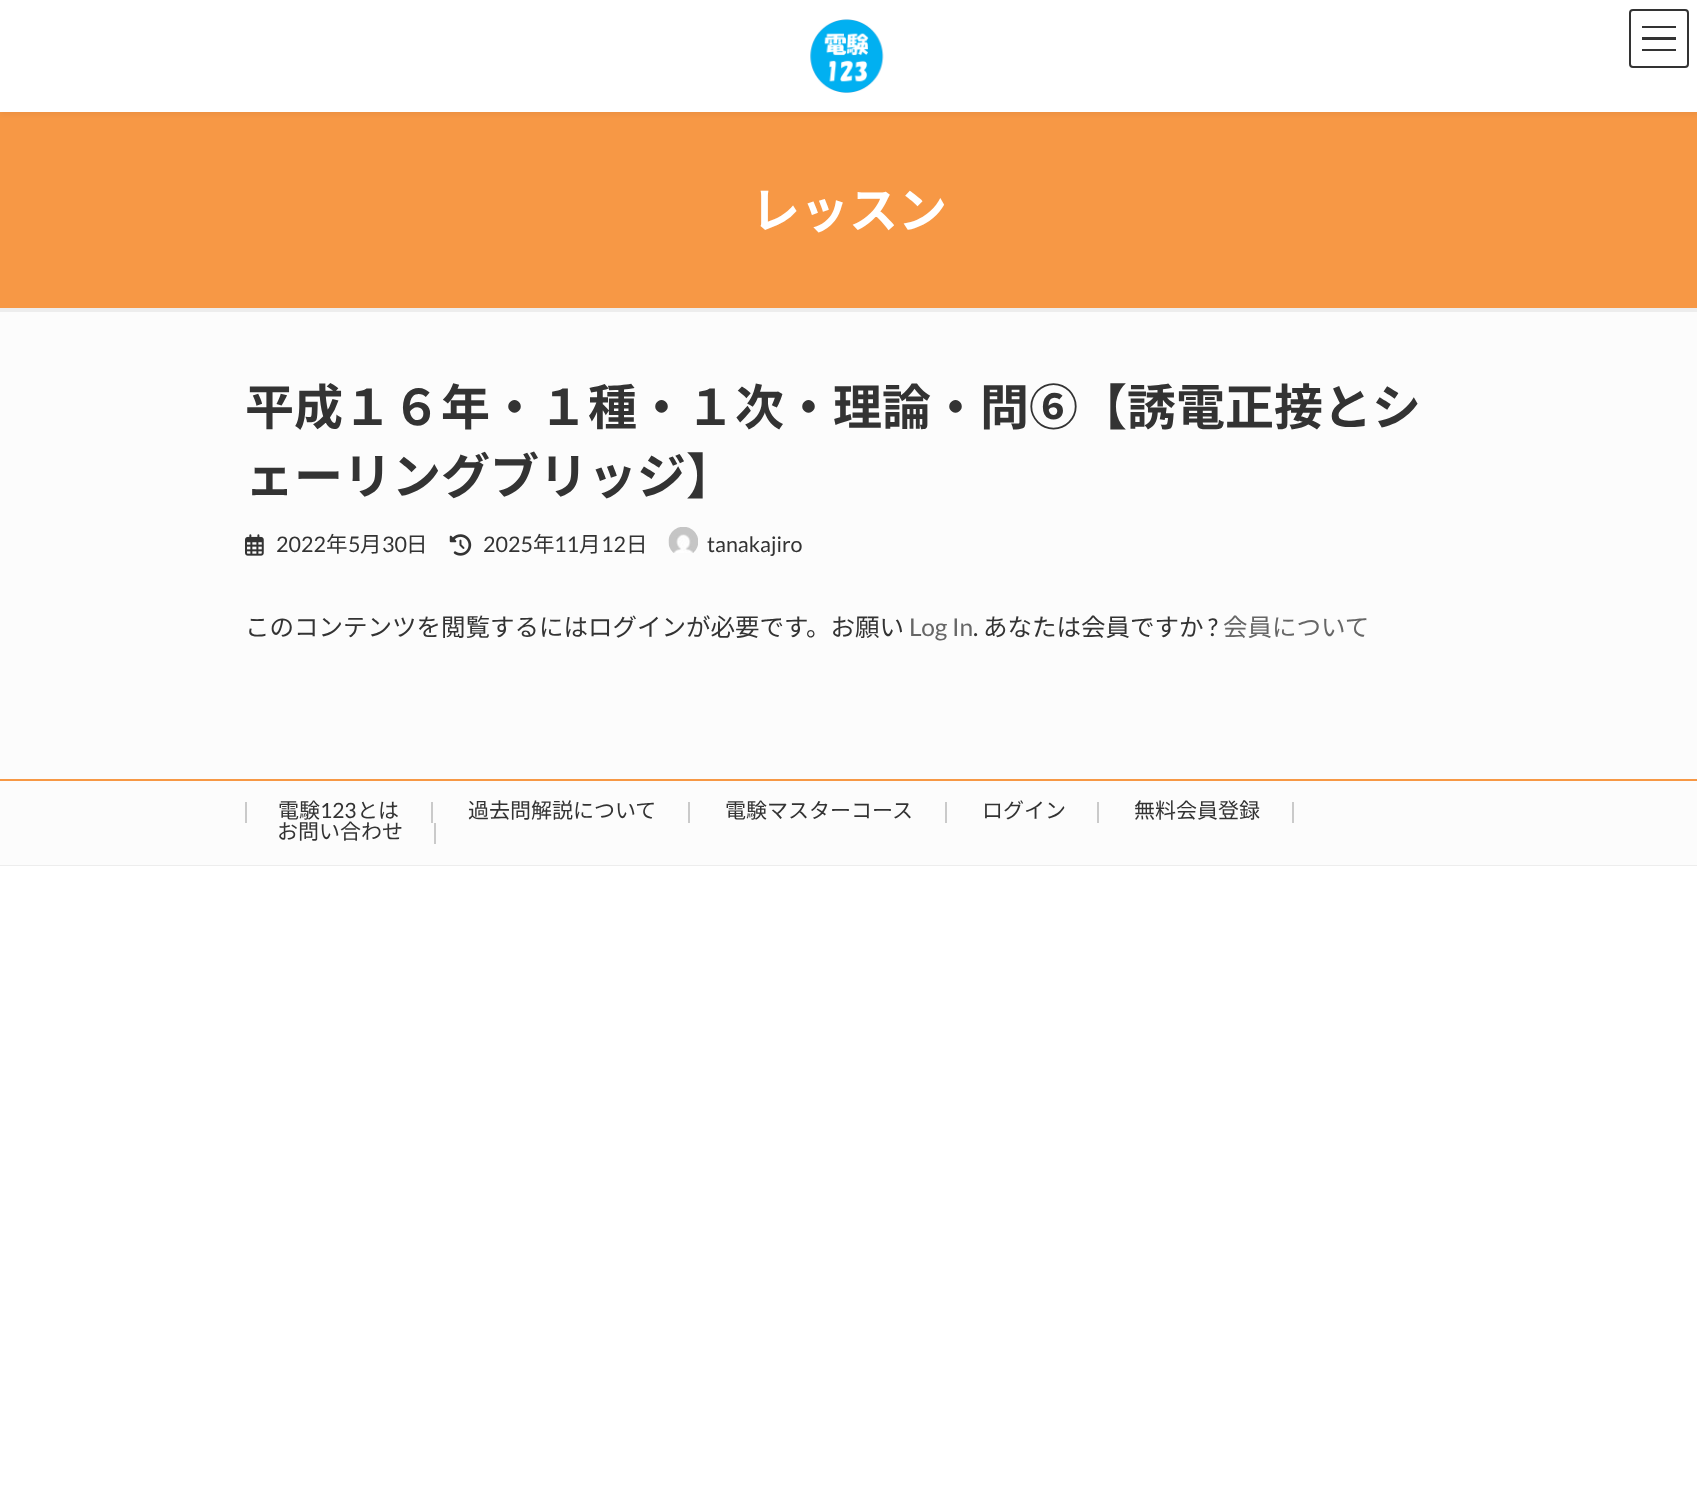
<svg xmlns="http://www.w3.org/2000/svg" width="1697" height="1500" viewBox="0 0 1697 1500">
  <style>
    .t1 { font: bold 49px Noto Sans JP; fill: #fff; }
    .t2 { font: bold 49px Noto Sans JP; fill: #333; }
    .t3 { font: 21.5px Lato; fill: #333; }
    .t4 { font: 21.5px Noto Sans JP; fill: #333; }
    .t5 { font: 24.5px Noto Sans JP; fill: #333; }
    .t6 { font: 24.5px Lato; fill: #666; }
    .t7 { font: 24.5px Lato; fill: #333; }
    .t8 { font: 24.5px Noto Sans JP; fill: #666; }
    .t9 { font: 21px Noto Sans JP; fill: #333; }
    .t10 { font: 21px Lato; fill: #333; }
  </style>
  <rect width="100%" height="100%" fill="#fff"/>
  <rect x="0" y="312" width="1697" height="553" fill="#fcfcfc"/>
  <rect x="0" y="112" width="1697" height="196" fill="#f79845"/>
  <rect x="0" y="2" width="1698" height="112" fill="#0000000d" filter="blur(2.5px)"/>
  <rect x="0" y="0" width="1697" height="112" fill="#fff"/>
  <image x="810" y="19" width="74" height="74" href="images/1.png"/>
  <rect x="1642" y="26" width="34" height="2" fill="#333"/>
  <rect x="1642" y="37" width="34" height="3" fill="#333"/>
  <rect x="1642" y="49" width="34" height="2" fill="#333"/>
  <rect x="1630" y="10" width="58" height="57" rx="3" fill="none" stroke="#333" stroke-width="2"/>
  <text x="751" y="228" class="t1">レッスン</text>
  <rect x="0" y="308" width="1697" height="4" fill="#ededed"/>
  <text x="245" y="425" class="t2">平成１６年・１種・１次・理論・問⑥【誘電正接とシ</text>
  <text x="245" y="494" class="t2">ェーリングブリッジ】</text>
  <image x="245" y="534" width="19" height="22" href="images/2.png"/>
  <text x="276" y="552" class="t3">2022</text>
  <text x="326" y="552" class="t4">年</text>
  <text x="348" y="552" class="t3">5</text>
  <text x="360" y="552" class="t4">月</text>
  <text x="382" y="552" class="t3">30</text>
  <text x="406" y="552" class="t4">日</text>
  <image x="449" y="534" width="23" height="22" href="images/3.png"/>
  <text x="483" y="552" class="t3">2025</text>
  <text x="533" y="552" class="t4">年</text>
  <text x="554" y="552" class="t3">11</text>
  <text x="579" y="552" class="t4">月</text>
  <text x="601" y="552" class="t3">12</text>
  <text x="626" y="552" class="t4">日</text>
  <image x="668" y="527" width="30" height="26" href="images/4.png"/>
  <text x="707" y="552" class="t3">tanakajiro</text>
  <text x="245" y="636" class="t5">このコンテンツを閲覧するにはログインが必要です。お願い</text>
  <text x="909" y="636" class="t6">Log In</text>
  <text x="973" y="636" class="t7">.</text>
  <text x="983" y="636" class="t5">あなたは会員ですか</text>
  <text x="1208" y="636" class="t7">?</text>
  <text x="1223" y="636" class="t8">会員について</text>
  <rect x="0" y="779" width="1697" height="2" fill="#f79845"/>
  <rect x="0" y="865" width="1697" height="1" fill="#ededed"/>
  <rect x="431" y="802" width="2" height="21" fill="#cacaca"/>
  <rect x="245" y="802" width="2" height="21" fill="#cacaca"/>
  <text x="278" y="818" class="t9">電験</text>
  <text x="320" y="818" class="t10">123</text>
  <text x="357" y="818" class="t9">とは</text>
  <rect x="688" y="802" width="2" height="21" fill="#cacaca"/>
  <text x="468" y="818" class="t9">過去問解説について</text>
  <rect x="945" y="802" width="2" height="21" fill="#cacaca"/>
  <text x="725" y="818" class="t9">電験マスターコース</text>
  <rect x="1097" y="802" width="2" height="21" fill="#cacaca"/>
  <text x="982" y="818" class="t9">ログイン</text>
  <rect x="1292" y="802" width="2" height="21" fill="#cacaca"/>
  <text x="1134" y="818" class="t9">無料会員登録</text>
  <rect x="434" y="823" width="2" height="21" fill="#cacaca"/>
  <text x="277" y="839" class="t9">お問い合わせ</text>
</svg>
